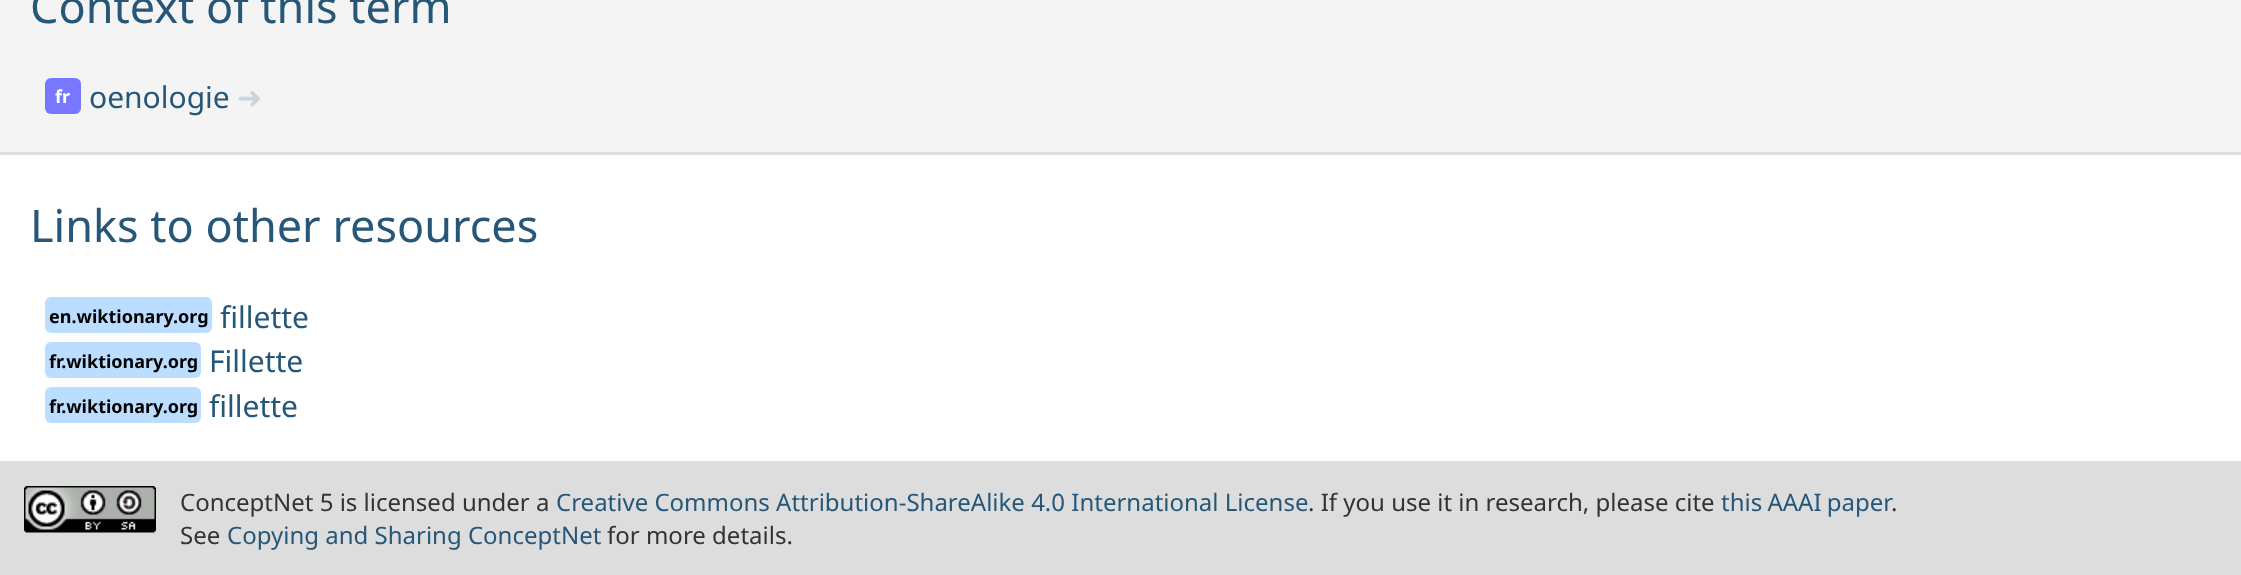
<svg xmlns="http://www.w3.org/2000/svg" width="2241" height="575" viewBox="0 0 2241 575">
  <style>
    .t1 { font: 45px Noto Sans; fill: #265778; }
    .t2 { font: bold 18px Noto Sans; fill: #fff; }
    .t3 { font: 30px Noto Sans; fill: #265778; }
    .t4 { font: 30px DejaVu Sans; fill: #cbd5db; }
    .t5 { font: bold 18px Noto Sans; fill: #000; }
    .t6 { font: 24px Noto Sans; fill: #333; }
    .t7 { font: 24px Noto Sans; fill: #265778; }
  </style>
  <rect width="100%" height="100%" fill="#f4f4f4"/>
  <rect x="0" y="152" width="2241" height="3" fill="#ddd"/>
  <text x="30" y="23" class="t1">Context of this term</text>
  <rect x="45" y="78" width="36" height="36" rx="6" fill="#77f"/>
  <text x="55" y="103" class="t2">fr</text>
  <text x="89" y="108" class="t3">oenologie</text>
  <text x="237" y="108" class="t4">➜</text>
  <rect x="0" y="155" width="2241" height="306" fill="#fff"/>
  <rect x="0" y="461" width="2241" height="114" fill="#ddd"/>
  <text x="30" y="242" class="t1">Links to other resources</text>
  <rect x="45" y="297" width="167" height="36" rx="6" fill="#bdf"/>
  <text x="49" y="323" class="t5">en.wiktionary.org</text>
  <text x="220" y="328" class="t3">fillette</text>
  <rect x="45" y="342" width="156" height="36" rx="6" fill="#bdf"/>
  <text x="49" y="368" class="t5">fr.wiktionary.org</text>
  <text x="209" y="372" class="t3">Fillette</text>
  <rect x="45" y="387" width="156" height="36" rx="6" fill="#bdf"/>
  <text x="49" y="413" class="t5">fr.wiktionary.org</text>
  <text x="209" y="417" class="t3">fillette</text>
  <image x="24" y="486" width="132" height="47" href="images/1.png"/>
  <text x="180" y="511" class="t6">ConceptNet 5 is licensed under a</text>
  <text x="556" y="511" class="t7">Creative Commons Attribution-ShareAlike 4.0 International License</text>
  <text x="1308" y="511" class="t6">. If you use it in research, please cite</text>
  <text x="1721" y="511" word-spacing="-1" class="t7">this AAAI paper</text>
  <text x="1891" y="511" class="t6">.</text>
  <text x="180" y="544" class="t6">See</text>
  <text x="227" y="544" class="t7">Copying and Sharing ConceptNet</text>
  <text x="607" y="544" class="t6">for more details.</text>
</svg>
